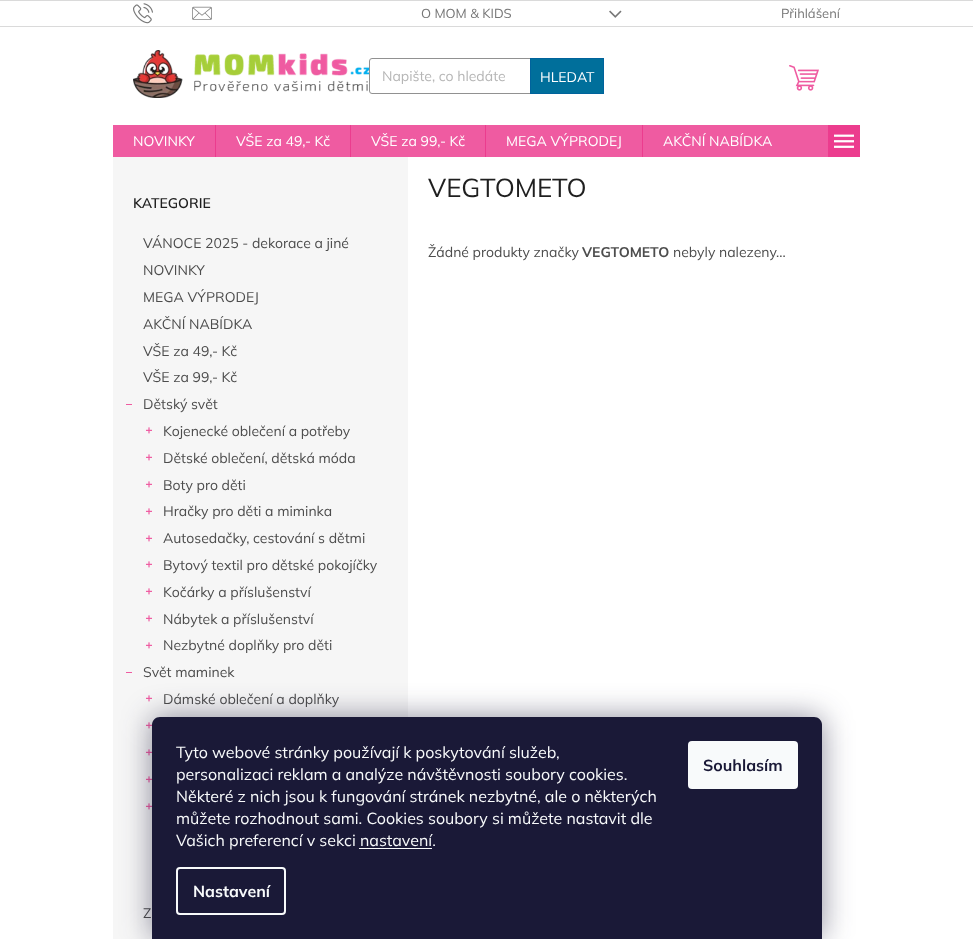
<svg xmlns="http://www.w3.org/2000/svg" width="973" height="939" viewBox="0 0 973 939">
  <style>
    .t1 { font: 13px Mulish; fill: #767676; }
    .t2 { font: 14px Mulish; fill: #b6b6b6; }
    .t3 { font: 14px Mulish; fill: #fff; }
    .t4 { font: 600 14px Mulish; fill: #1f1f1f; }
    .t5 { font: 14px Mulish; fill: #4d4d4d; }
    .t6 { font: 26px Mulish; fill: #1f1f1f; }
    .t7 { font: bold 14px Mulish; fill: #4d4d4d; }
    .t8 { font: 16px Mulish; fill: #f8fafb; }
    .t9 { font: bold 16px Mulish; fill: #f8fafb; }
    .t10 { font: bold 16px Mulish; fill: #1a1937; }
  </style>
  <rect width="100%" height="100%" fill="#fff"/>
  <rect x="0" y="0" width="973" height="1" fill="#dadada"/>
  <rect x="0" y="26" width="973" height="1" fill="#dadada"/>
  <image x="133" y="3" width="20" height="21" href="images/1.png"/>
  <image x="192" y="6" width="20" height="14" href="images/2.png"/>
  <text x="421" y="18" class="t1">O MOM &amp; KIDS</text>
  <image x="609" y="10" width="13" height="8" href="images/3.png"/>
  <text x="781" y="18" class="t1">Přihlášení</text>
  <image x="133" y="50" width="236" height="48" href="images/4.png"/>
  <rect x="369.5" y="58.5" width="234" height="35" rx="2.5" fill="none" stroke="#919191"/>
  <text x="382" y="81" class="t2">Napište, co hledáte</text>
  <rect x="530.5" y="58.5" width="73" height="35" fill="#006f9b" stroke="#00639c"/>
  <text x="540" y="82" class="t3">HLEDAT</text>
  <image x="789" y="65" width="30" height="26" href="images/5.png"/>
  <rect x="113" y="125" width="715" height="32" fill="#ef5ba1"/>
  <text x="133" y="146" class="t3">NOVINKY</text>
  <rect x="215" y="125" width="1" height="32" fill="#ec3c8e"/>
  <text x="236" y="146" class="t3">VŠE za 49,- Kč</text>
  <rect x="350" y="125" width="1" height="32" fill="#ec3c8e"/>
  <text x="371" y="146" class="t3">VŠE za 99,- Kč</text>
  <rect x="485" y="125" width="1" height="32" fill="#ec3c8e"/>
  <text x="506" y="146" class="t3">MEGA VÝPRODEJ</text>
  <rect x="642" y="125" width="1" height="32" fill="#ec3c8e"/>
  <text x="663" y="146" class="t3">AKČNÍ NABÍDKA</text>
  <rect x="828" y="125" width="32" height="32" fill="#ec3c8e"/>
  <image x="834" y="134" width="20" height="14" href="images/6.png"/>
  <rect x="113" y="157" width="295" height="782" fill="#f6f6f6"/>
  <text x="133" y="208" class="t4">KATEGORIE</text>
  <text x="143" y="248" class="t5">VÁNOCE 2025 - dekorace a jiné</text>
  <text x="143" y="275" class="t5">NOVINKY</text>
  <text x="143" y="302" class="t5">MEGA VÝPRODEJ</text>
  <text x="143" y="329" class="t5">AKČNÍ NABÍDKA</text>
  <text x="143" y="356" class="t5">VŠE za 49,- Kč</text>
  <text x="143" y="382" class="t5">VŠE za 99,- Kč</text>
  <rect x="126" y="404" width="6" height="1" fill="#ef5ba1"/>
  <text x="143" y="409" class="t5">Dětský svět</text>
  <image x="146" y="427" width="6" height="7" href="images/7.png"/>
  <text x="163" y="436" class="t5">Kojenecké oblečení a potřeby</text>
  <image x="146" y="454" width="6" height="7" href="images/7.png"/>
  <text x="163" y="463" class="t5">Dětské oblečení, dětská móda</text>
  <image x="146" y="481" width="6" height="7" href="images/7.png"/>
  <text x="163" y="490" class="t5">Boty pro děti</text>
  <image x="146" y="508" width="6" height="7" href="images/7.png"/>
  <text x="163" y="516" class="t5">Hračky pro děti a miminka</text>
  <image x="146" y="535" width="6" height="7" href="images/7.png"/>
  <text x="163" y="543" class="t5">Autosedačky, cestování s dětmi</text>
  <image x="146" y="561" width="6" height="7" href="images/7.png"/>
  <text x="163" y="570" class="t5">Bytový textil pro dětské pokojíčky</text>
  <image x="146" y="588" width="6" height="7" href="images/7.png"/>
  <text x="163" y="597" class="t5">Kočárky a příslušenství</text>
  <image x="146" y="615" width="6" height="7" href="images/7.png"/>
  <text x="163" y="624" class="t5">Nábytek a příslušenství</text>
  <image x="146" y="642" width="6" height="7" href="images/7.png"/>
  <text x="163" y="650" class="t5">Nezbytné doplňky pro děti</text>
  <rect x="126" y="672" width="6" height="1" fill="#ef5ba1"/>
  <text x="143" y="677" class="t5">Svět maminek</text>
  <image x="146" y="695" width="6" height="7" href="images/7.png"/>
  <text x="163" y="704" class="t5">Dámské oblečení a doplňky</text>
  <image x="146" y="722" width="6" height="7" href="images/7.png"/>
  <image x="146" y="749" width="6" height="7" href="images/7.png"/>
  <image x="146" y="776" width="6" height="7" href="images/7.png"/>
  <image x="146" y="803" width="6" height="7" href="images/7.png"/>
  <text x="143" y="918" class="t5">Z</text>
  <text x="428" y="197" class="t6">VEGTOMETO</text>
  <text x="428" y="257" class="t5">Žádné produkty značky</text>
  <text x="582" y="257" class="t7">VEGTOMETO</text>
  <text x="673" y="257" class="t5">nebyly nalezeny...</text>
  <rect x="152" y="717" width="670" height="222" rx="8" fill="#1b193980" filter="blur(15px)"/>
  <path d="M160 717H814C818.5 717 822 720.5 822 725V939H152V725C152 720.5 155.5 717 160 717Z" fill="#1a1937"/>
  <text x="176" y="758" class="t8">Tyto webové stránky používají k poskytování služeb,</text>
  <text x="176" y="780" class="t8">personalizaci reklam a analýze návštěvnosti soubory cookies.</text>
  <text x="176" y="802" class="t8">Některé z nich jsou k fungování stránek nezbytné, ale o některých</text>
  <text x="176" y="824" class="t8">můžete rozhodnout sami. Cookies soubory si můžete nastavit dle</text>
  <text x="176" y="846" class="t8">Vašich preferencí v sekci nastavení.</text>
  <rect x="359" y="848" width="73" height="1" fill="#f8fafb"/>
  <rect x="177" y="868" width="108" height="46" rx="3" fill="none" stroke="#f8fafb" stroke-width="2"/>
  <text x="193" y="897" class="t9">Nastavení</text>
  <rect x="688" y="741" width="110" height="48" rx="4" fill="#f8fafb"/>
  <text x="703" y="771" class="t10">Souhlasím</text>
</svg>
